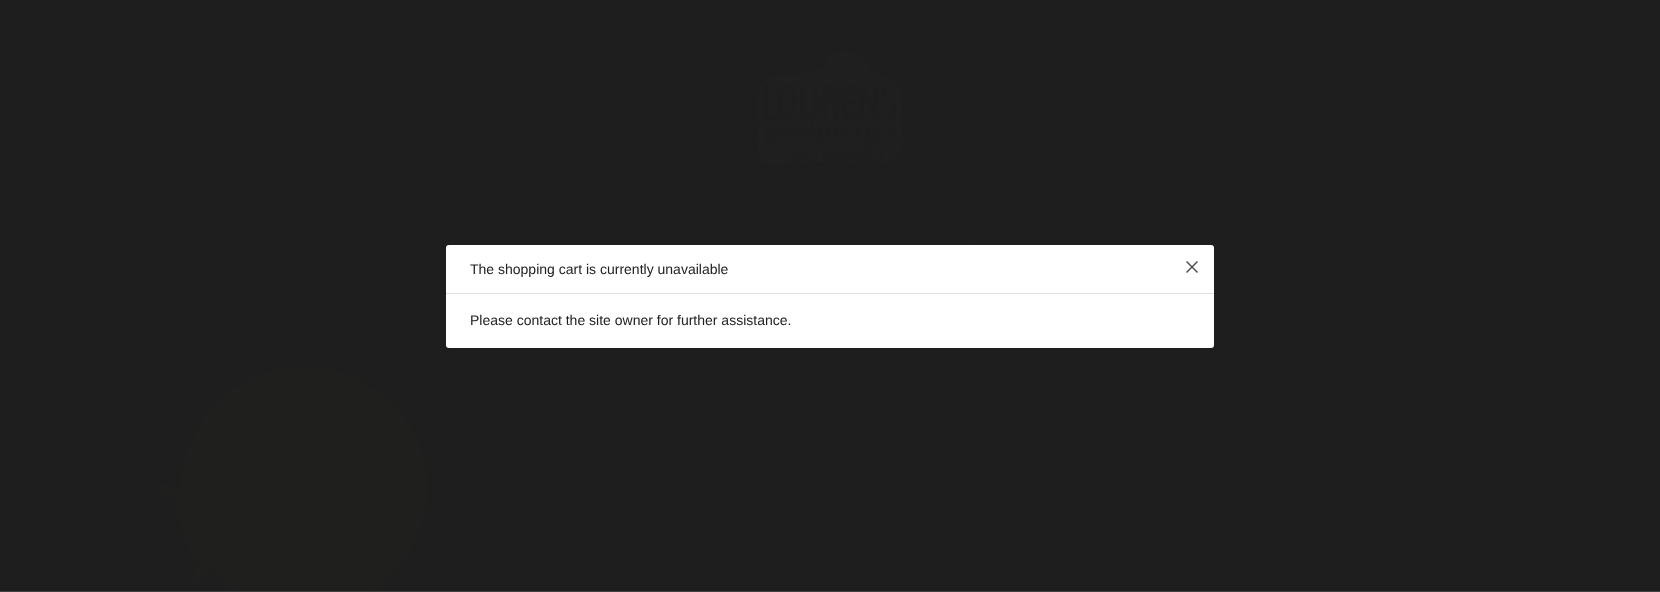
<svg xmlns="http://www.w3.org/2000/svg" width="1660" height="592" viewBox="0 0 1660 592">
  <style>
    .t1 { font: 14px Liberation Sans; fill: #212121; }
  </style>
  <rect width="100%" height="100%" fill="#fff"/>
  <image x="0" y="0" width="1660" height="592" href="images/1.png"/>
  <image x="1579" y="16" width="18" height="15" href="images/2.png"/>
  <image x="1629" y="16" width="14" height="15" href="images/3.png"/>
  <image x="755" y="50" width="150" height="118" href="images/4.png"/>
  <rect x="446" y="245" width="768" height="103" rx="3" fill="#fff"/>
  <rect x="446" y="293" width="768" height="1" fill="#e0e0e0"/>
  <text x="470" y="274" class="t1">The shopping cart is currently unavailable</text>
  <text x="470" y="325" class="t1">Please contact the site owner for further assistance.</text>
  <image x="1186" y="261" width="12" height="12" href="images/5.png"/>
</svg>
